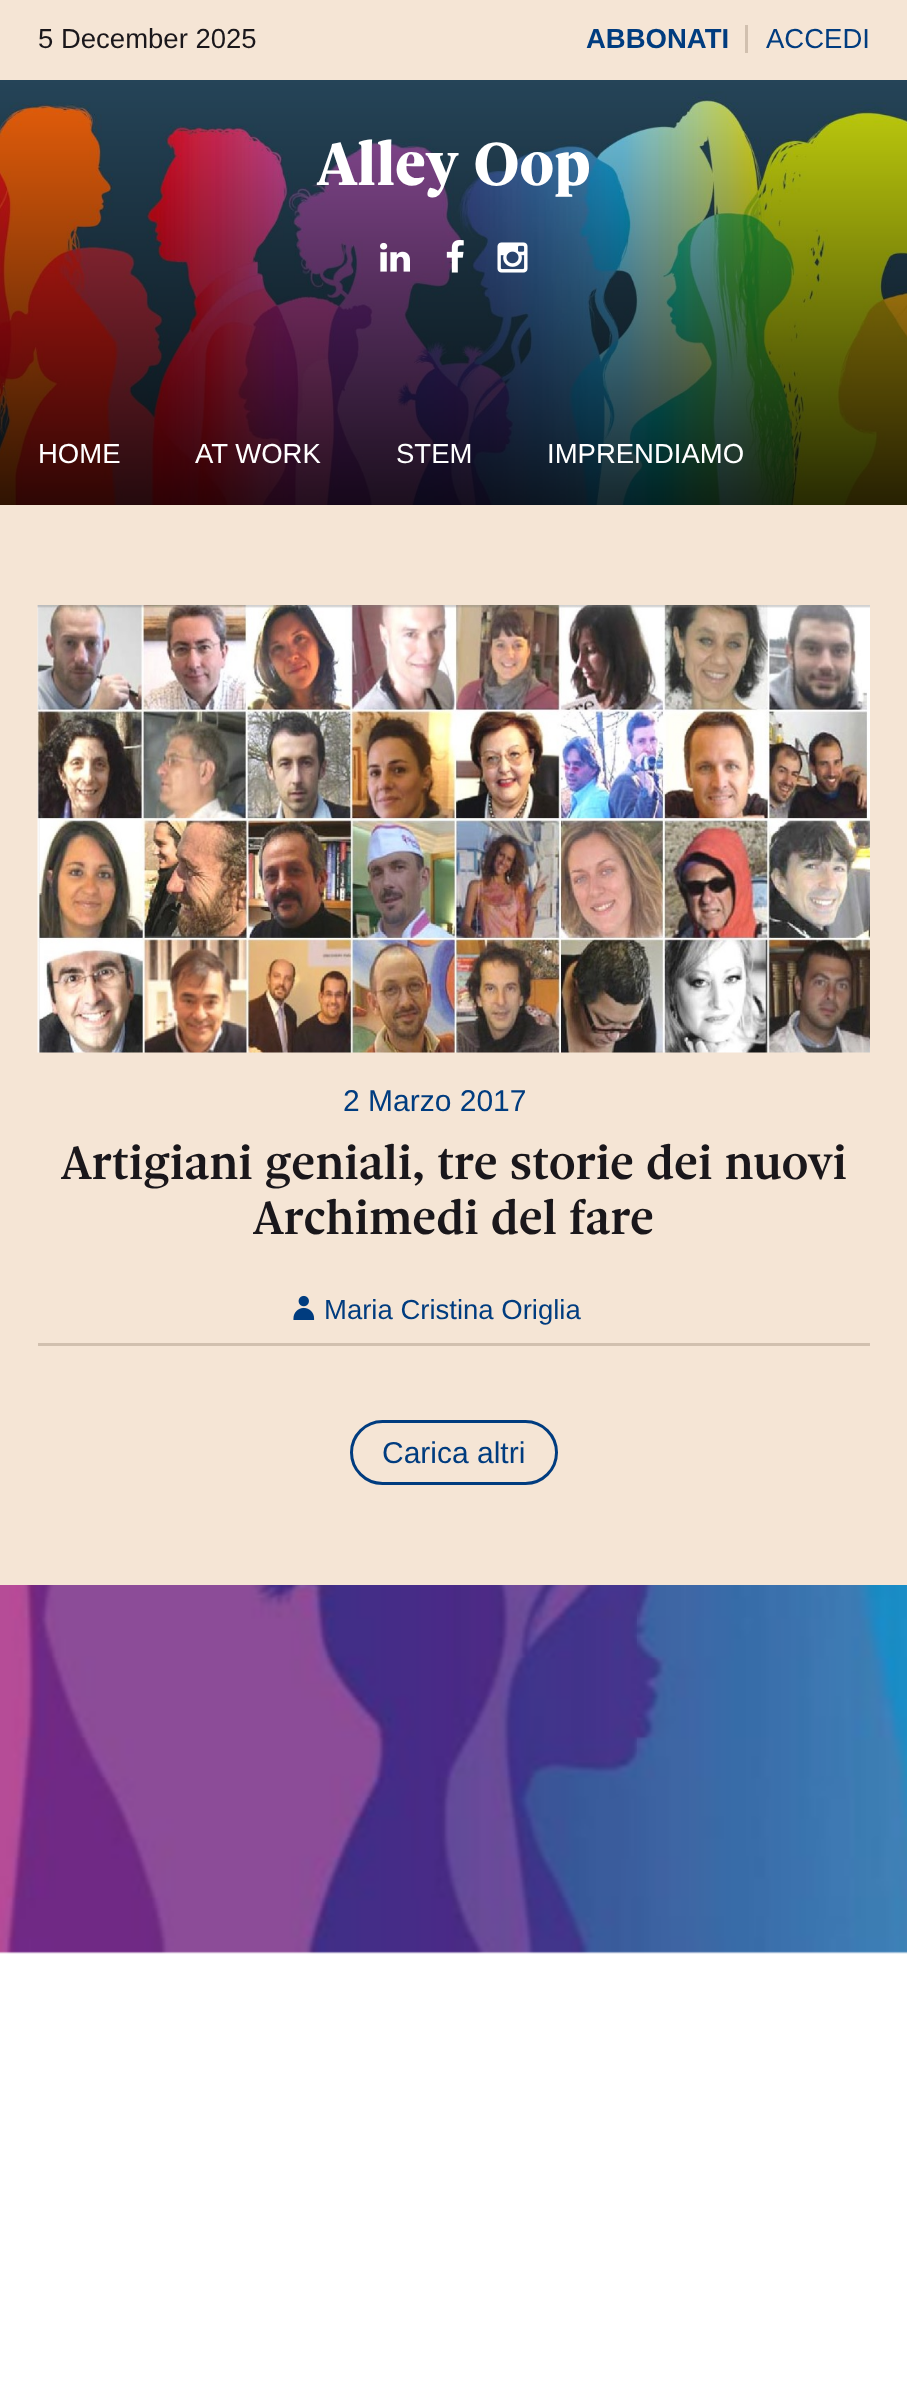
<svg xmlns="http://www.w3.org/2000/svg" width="907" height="2406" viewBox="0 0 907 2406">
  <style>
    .t1 { font: 27.5px Liberation Sans; fill: #1a171b; }
    .t2 { font: bold 27.5px Liberation Sans; fill: #003c7f; }
    .t3 { font: 27.5px Liberation Sans; fill: #003c7f; }
    .t4 { font: bold 65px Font; fill: #fff; }
    .t5 { font: 27.5px Liberation Sans; fill: #fff; }
    .t6 { font: 30px Liberation Sans; fill: #003c7f; }
    .t7 { font: 500 50px Font; fill: #1a171b; }
  </style>
  <rect width="100%" height="100%" fill="#fff"/>
  <image x="0" y="1585" width="907" height="369" href="images/1.png"/>
  <rect x="0" y="0" width="907" height="1585" fill="#f5e5d5"/>
  <text x="38" y="48" class="t1">5 December 2025</text>
  <rect x="745" y="25" width="3" height="28" fill="#d1c0af"/>
  <text x="586" y="48" class="t2">ABBONATI</text>
  <text x="766" y="48" class="t3">ACCEDI</text>
  <image x="0" y="80" width="907" height="425" href="images/2.png"/>
  <text x="317" y="185" class="t4">Alley Oop</text>
  <image x="380" y="242" width="30" height="30" href="images/3.png"/>
  <image x="446" y="240" width="18" height="33" href="images/4.png"/>
  <image x="497" y="242" width="31" height="31" href="images/5.png"/>
  <text x="38" y="463" class="t5">HOME</text>
  <text x="195" y="463" class="t5">AT WORK</text>
  <text x="396" y="463" class="t5">STEM</text>
  <text x="547" y="463" class="t5">IMPRENDIAMO</text>
  <rect x="38" y="1343" width="832" height="3" fill="#d1c0af"/>
  <image x="37" y="605" width="833" height="448" href="images/6.png"/>
  <text x="343" y="1111" class="t6">2 Marzo 2017</text>
  <text x="61" y="1179" class="t7">Artigiani geniali, tre storie dei nuovi</text>
  <text x="253" y="1234" class="t7">Archimedi del fare</text>
  <image x="293" y="1295" width="22" height="25" href="images/7.png"/>
  <text x="324" y="1319" class="t3">Maria Cristina Origlia</text>
  <rect x="351.5" y="1421.5" width="205" height="62" rx="31" fill="none" stroke="#003c7f" stroke-width="3"/>
  <text x="382" y="1463" class="t6">Carica altri</text>
</svg>
